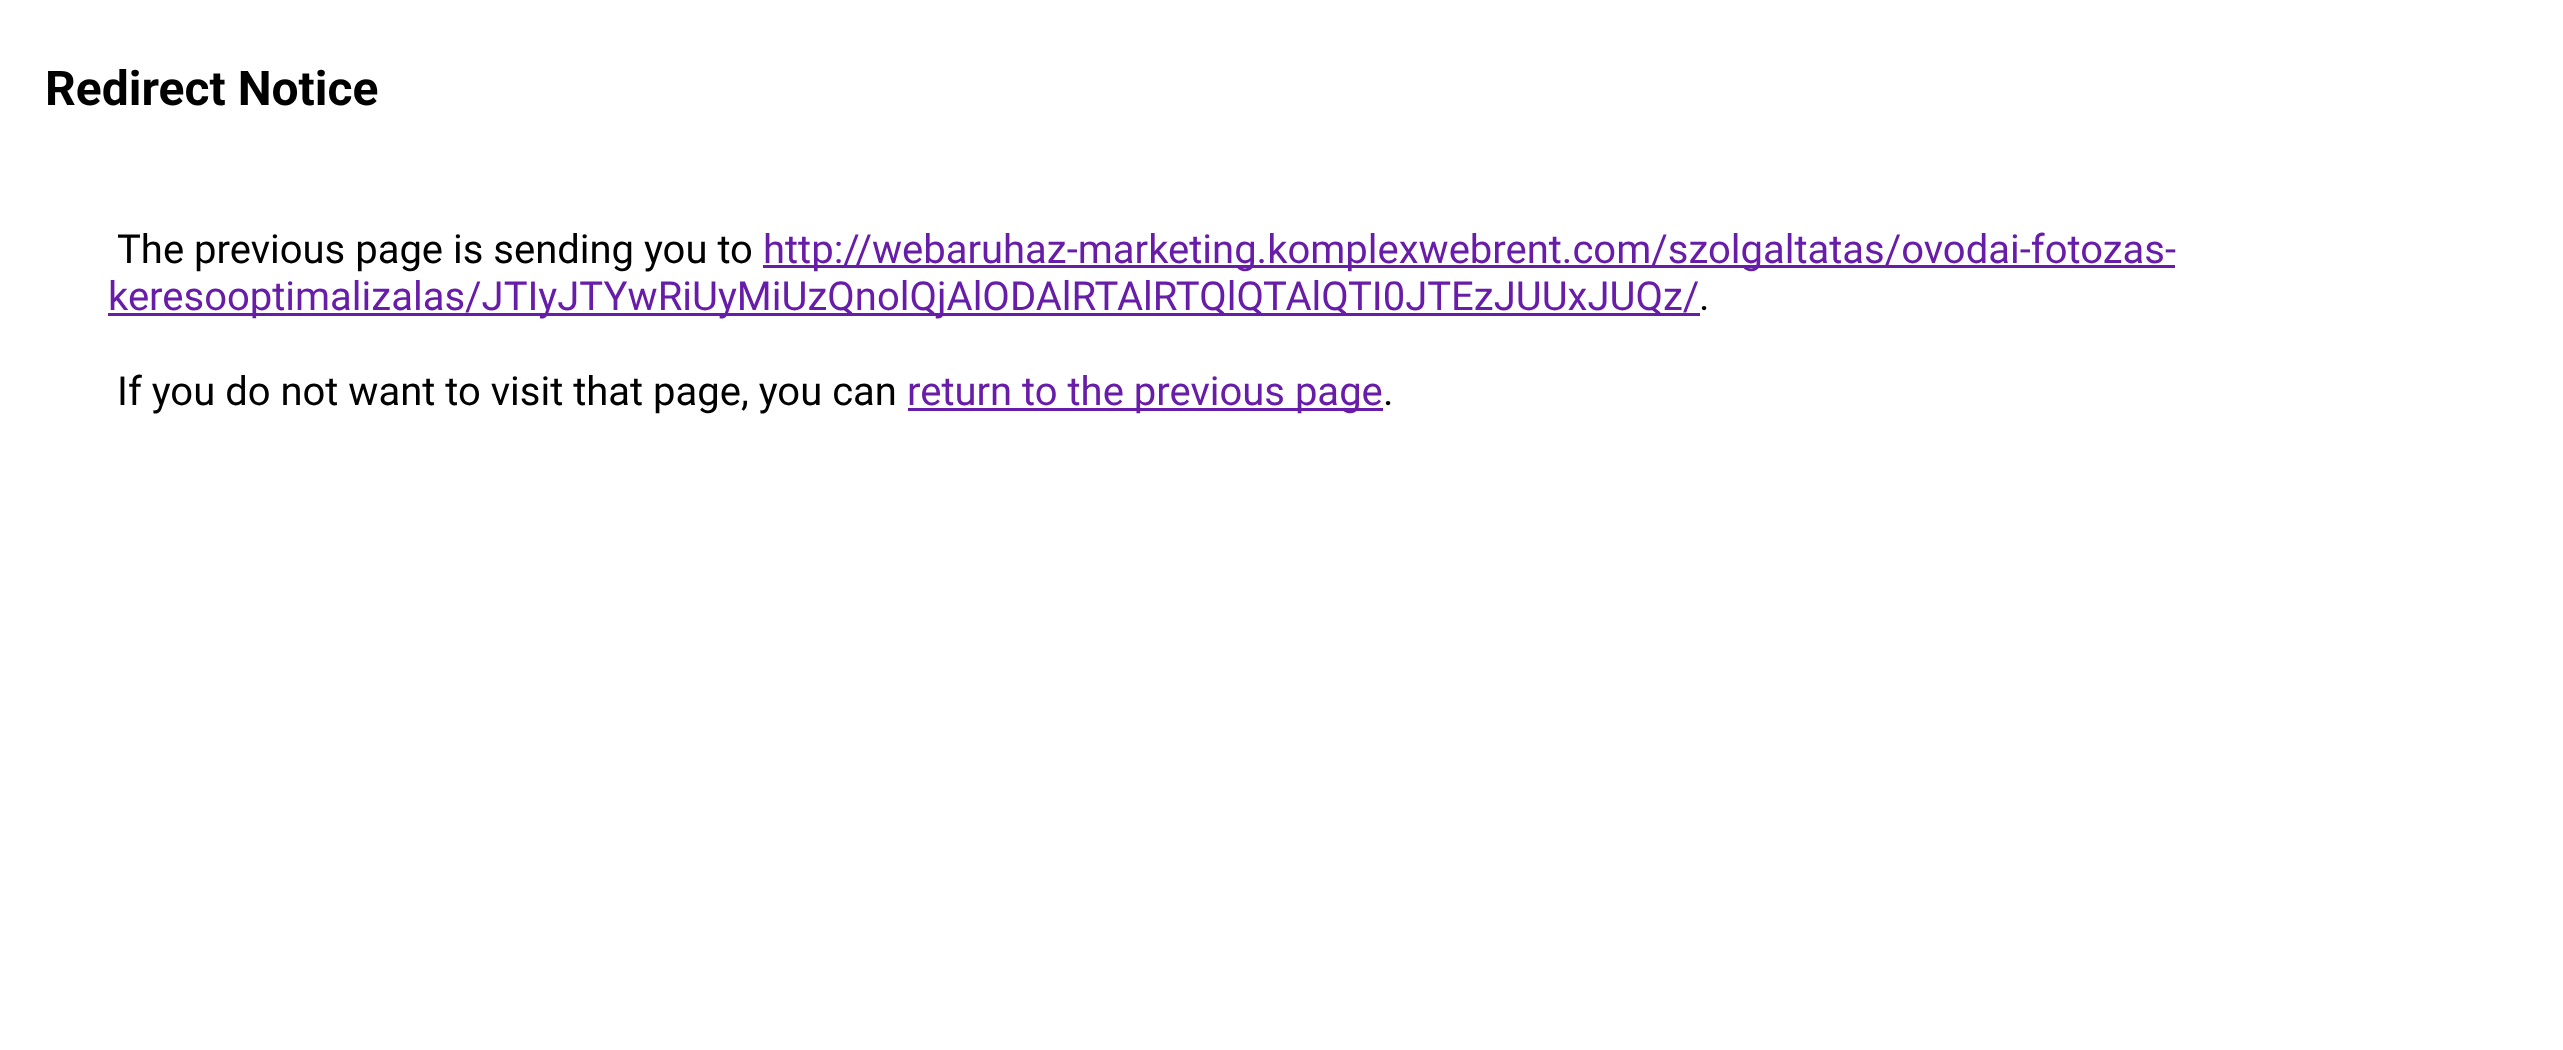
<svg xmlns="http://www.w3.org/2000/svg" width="2563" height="1050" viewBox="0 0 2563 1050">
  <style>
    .t1 { font: bold 48px Roboto; fill: #000; }
    .t2 { font: 40px Roboto; fill: #000; }
    .t3 { font: 40px Roboto; fill: #681da8; }
  </style>
  <rect width="100%" height="100%" fill="#fff"/>
  <text x="45" y="105" class="t1">Redirect Notice</text>
  <text x="117" y="263" class="t2">The previous page is sending you to</text>
  <rect x="763" y="265" width="1412" height="3" fill="#681da8"/>
  <text x="763" y="263" class="t3">http://webaruhaz-marketing.komplexwebrent.com/szolgaltatas/ovodai-fotozas-</text>
  <rect x="108" y="313" width="1592" height="3" fill="#681da8"/>
  <text x="108" y="310" class="t3">keresooptimalizalas/JTIyJTYwRiUyMiUzQnolQjAlODAlRTAlRTQlQTAlQTI0JTEzJUUxJUQz/</text>
  <text x="1699" y="310" class="t2">.</text>
  <text x="117" y="405" class="t2">If you do not want to visit that page, you can</text>
  <rect x="908" y="408" width="475" height="3" fill="#681da8"/>
  <text x="907" y="405" class="t3">return to the previous page</text>
  <text x="1383" y="405" class="t2">.</text>
</svg>
